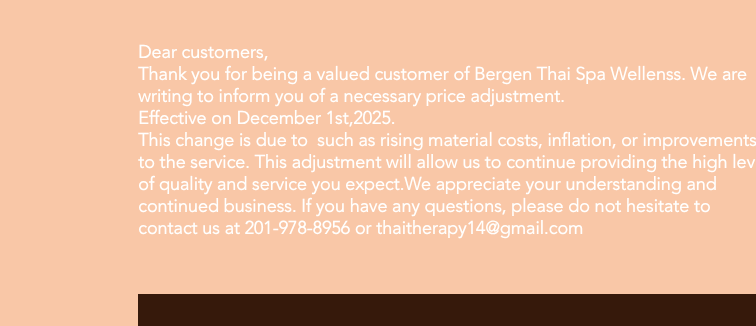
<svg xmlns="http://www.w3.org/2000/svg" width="756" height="326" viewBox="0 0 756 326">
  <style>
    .t1 { font: bold 18px 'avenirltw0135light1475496'; fill: #fffffe; }
  </style>
  <rect width="100%" height="100%" fill="#f9c7a7"/>
  <text x="138" y="58" class="t1">Dear customers,</text>
  <text x="138" y="80" class="t1">Thank you for being a valued customer of Bergen Thai Spa Wellenss. We are</text>
  <text x="138" y="102" class="t1">writing to inform you of a necessary price adjustment.</text>
  <text x="138" y="124" class="t1">Effective on December 1st,2025.</text>
  <text x="138" y="146" class="t1" xml:space="preserve">This change is due to  such as rising material costs, inflation, or improvements</text>
  <text x="138" y="168" class="t1">to the service. This adjustment will allow us to continue providing the high lev</text>
  <text x="138" y="190" class="t1">of quality and service you expect.We appreciate your understanding and</text>
  <text x="138" y="212" class="t1">continued business. If you have any questions, please do not hesitate to</text>
  <text x="138" y="234" class="t1">contact us at 201-978-8956 or thaitherapy14@gmail.com</text>
  <rect x="138" y="294" width="618" height="32" fill="#36190b"/>
</svg>
